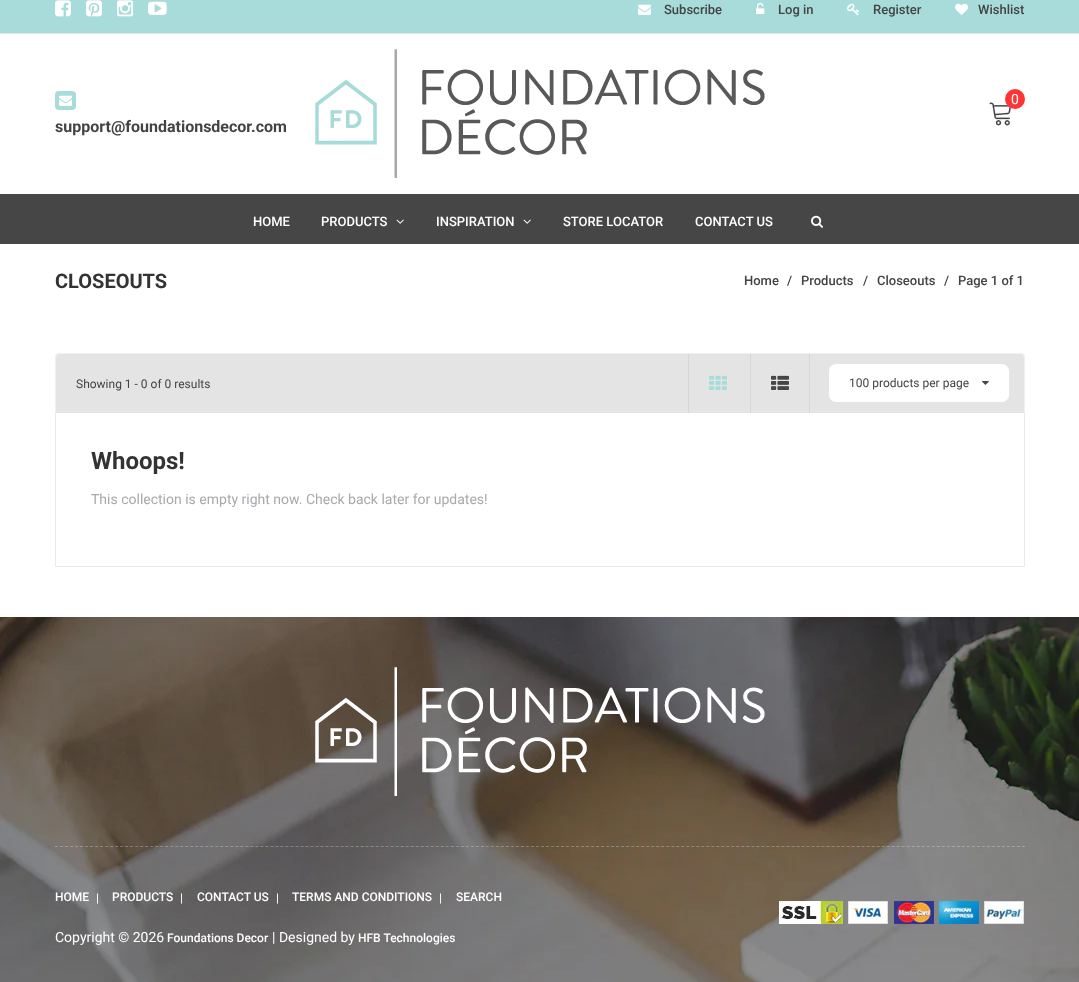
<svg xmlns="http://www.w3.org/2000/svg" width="1079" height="982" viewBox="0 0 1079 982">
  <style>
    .t1 { font: 500 13px Roboto; fill: #434343; }
    .t2 { font: 14px Roboto; fill: #fff; }
    .t3 { font: bold 16px Roboto; fill: #434343; }
    .t4 { font: 500 13px Roboto; fill: #fff; }
    .t5 { font: bold 20px Roboto; fill: #333; }
    .t6 { font: 12px Roboto; fill: #434343; }
    .t7 { font: bold 24px Roboto; fill: #333; }
    .t8 { font: 14px Roboto; fill: #a7a9ac; }
    .t9 { font: 500 12px Roboto; fill: #fff; }
  </style>
  <rect width="100%" height="100%" fill="#fff"/>
  <rect x="0" y="0" width="1079" height="33" fill="#a8dcda"/>
  <rect x="0" y="33" width="1079" height="1" fill="#e6e6e6"/>
  <image x="55" y="0" width="16" height="17" href="images/1.png"/>
  <image x="86" y="0" width="16" height="17" href="images/2.png"/>
  <image x="117" y="0" width="16" height="17" href="images/3.png"/>
  <image x="148" y="1" width="19" height="14" href="images/4.png"/>
  <image x="638" y="4" width="13" height="11" href="images/5.png"/>
  <text x="664" y="14" class="t1">Subscribe</text>
  <image x="756" y="2" width="9" height="12" href="images/6.png"/>
  <text x="778" y="14" class="t1">Log in</text>
  <image x="847" y="3" width="13" height="13" href="images/7.png"/>
  <text x="873" y="14" class="t1">Register</text>
  <image x="955" y="3" width="13" height="12" href="images/8.png"/>
  <text x="978" y="14" class="t1">Wishlist</text>
  <image x="315" y="49" width="450" height="129" href="images/9.png"/>
  <image x="989" y="102" width="22" height="24" href="images/10.png"/>
  <circle cx="1015" cy="99" r="10" fill="#ff3535"/>
  <text x="1011" y="104" class="t2">0</text>
  <rect x="55" y="91" width="21" height="19" rx="4" fill="#a8dcda"/>
  <image x="59" y="95" width="13" height="11" href="images/5.png"/>
  <text x="55" y="132" class="t3">support@foundationsdecor.com</text>
  <rect x="0" y="194" width="1079" height="50" fill="#464646"/>
  <text x="253" y="226" class="t4">HOME</text>
  <text x="321" y="226" class="t4">PRODUCTS</text>
  <image x="396" y="219" width="8" height="5" href="images/11.png"/>
  <text x="436" y="226" class="t4">INSPIRATION</text>
  <image x="523" y="219" width="8" height="5" href="images/11.png"/>
  <text x="563" y="226" class="t4">STORE LOCATOR</text>
  <text x="695" y="226" class="t4">CONTACT US</text>
  <image x="811" y="215" width="12" height="13" href="images/12.png"/>
  <text x="55" y="288" class="t5">CLOSEOUTS</text>
  <text x="744" y="285" class="t1">Home</text>
  <text x="787" y="285" class="t1">/</text>
  <text x="801" y="285" class="t1">Products</text>
  <text x="863" y="285" class="t1">/</text>
  <text x="877" y="285" class="t1">Closeouts</text>
  <text x="944" y="285" class="t1">/</text>
  <text x="958" y="285" class="t1">Page 1 of 1</text>
  <rect x="55.5" y="400.5" width="969" height="166" fill="none" stroke="#eaeaea"/>
  <path d="M60 353H1020C1023 353 1025 355 1025 358V413H55V358C55 355 57 353 60 353Z" fill="#e4e4e4"/>
  <path d="M60 353H1020C1023 353 1025 355 1025 358V413H55V358C55 355 57 353 60 353ZM60 354H1020C1022 354 1024 356 1024 358V413H56V358C56 356 58 354 60 354Z" fill="#f0f0f0" fill-rule="evenodd"/>
  <text x="76" y="388" class="t6">Showing 1 - 0 of 0 results</text>
  <rect x="688" y="354" width="1" height="59" fill="#dad4d4"/>
  <image x="709" y="375" width="18" height="15" href="images/13.png"/>
  <rect x="809" y="354" width="1" height="59" fill="#dad4d4"/>
  <rect x="750" y="354" width="1" height="59" fill="#dad4d4"/>
  <image x="771" y="375" width="18" height="15" href="images/14.png"/>
  <rect x="829" y="364" width="180" height="38" rx="7" fill="#fff"/>
  <text x="849" y="387" class="t6">100 products per page</text>
  <image x="982" y="381" width="7" height="4" href="images/15.png"/>
  <text x="91" y="469" class="t7">Whoops!</text>
  <text x="91" y="504" class="t8">This collection is empty right now. Check back later for updates!</text>
  <image x="0" y="617" width="1079" height="365" href="images/16.png"/>
  <image x="315" y="667" width="450" height="129" href="images/17.png"/>
  <path d="M55 846.5H1025" fill="none" stroke="#ffffff45" stroke-dasharray="3 2.01"/>
  <text x="55" y="901" class="t9">HOME</text>
  <text x="96" y="902" class="t9">|</text>
  <text x="112" y="901" class="t9">PRODUCTS</text>
  <text x="180" y="902" class="t9">|</text>
  <text x="197" y="901" class="t9">CONTACT US</text>
  <text x="276" y="902" class="t9">|</text>
  <text x="292" y="901" class="t9">TERMS AND CONDITIONS</text>
  <text x="439" y="902" class="t9">|</text>
  <text x="456" y="901" class="t9">SEARCH</text>
  <text x="55" y="942" class="t2">Copyright © 2026</text>
  <text x="167" y="942" class="t9">Foundations Decor</text>
  <text x="272" y="942" class="t2">| Designed by</text>
  <text x="358" y="942" class="t9">HFB Technologies</text>
  <image x="779" y="901" width="64" height="23" href="images/18.png"/>
  <image x="848" y="901" width="40" height="23" href="images/19.png"/>
  <image x="894" y="901" width="40" height="23" href="images/20.png"/>
  <image x="939" y="901" width="40" height="23" href="images/21.png"/>
  <image x="984" y="901" width="40" height="23" href="images/22.png"/>
</svg>
